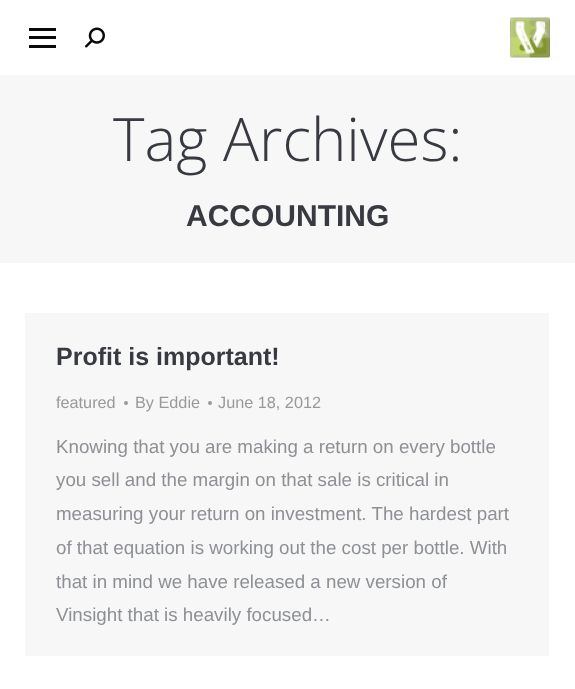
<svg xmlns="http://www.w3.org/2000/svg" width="575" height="689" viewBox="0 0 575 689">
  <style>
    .t1 { font: 300 60px Open Sans; fill: #373a41; }
    .t2 { font: bold 30px Liberation Sans; fill: #373a41; }
    .t3 { font: bold 25px Liberation Sans; fill: #373a41; }
    .t4 { font: 16.25px Liberation Sans; fill: #999; }
    .t5 { font: 18.75px Liberation Sans; fill: #8d9095; }
  </style>
  <rect width="100%" height="100%" fill="#fff"/>
  <rect x="29" y="28" width="27" height="3" fill="#0a0a0a"/>
  <rect x="29" y="36" width="27" height="3" fill="#0a0a0a"/>
  <rect x="29" y="45" width="27" height="3" fill="#0a0a0a"/>
  <image x="85" y="27" width="20" height="21" href="images/1.png"/>
  <image x="510" y="17" width="40" height="41" href="images/2.png"/>
  <rect x="0" y="75" width="575" height="188" fill="#f7f7f7"/>
  <text x="113" y="161" class="t1">Tag Archives:</text>
  <text x="186" y="226" class="t2">ACCOUNTING</text>
  <rect x="25" y="313" width="524" height="343" fill="#f7f7f7"/>
  <text x="56" y="365" class="t3">Profit is important!</text>
  <text x="56" y="408" class="t4">featured</text>
  <circle cx="126" cy="403" r="2" fill="#999"/>
  <text x="135" y="408" class="t4">By Eddie</text>
  <circle cx="210" cy="403" r="2" fill="#999"/>
  <text x="218" y="408" class="t4">June 18, 2012</text>
  <text x="56" y="453" class="t5">Knowing that you are making a return on every bottle</text>
  <text x="56" y="486" class="t5">you sell and the margin on that sale is critical in</text>
  <text x="56" y="520" class="t5">measuring your return on investment. The hardest part</text>
  <text x="56" y="554" class="t5">of that equation is working out the cost per bottle. With</text>
  <text x="56" y="588" class="t5">that in mind we have released a new version of</text>
  <text x="56" y="621" class="t5">Vinsight that is heavily focused…</text>
</svg>
